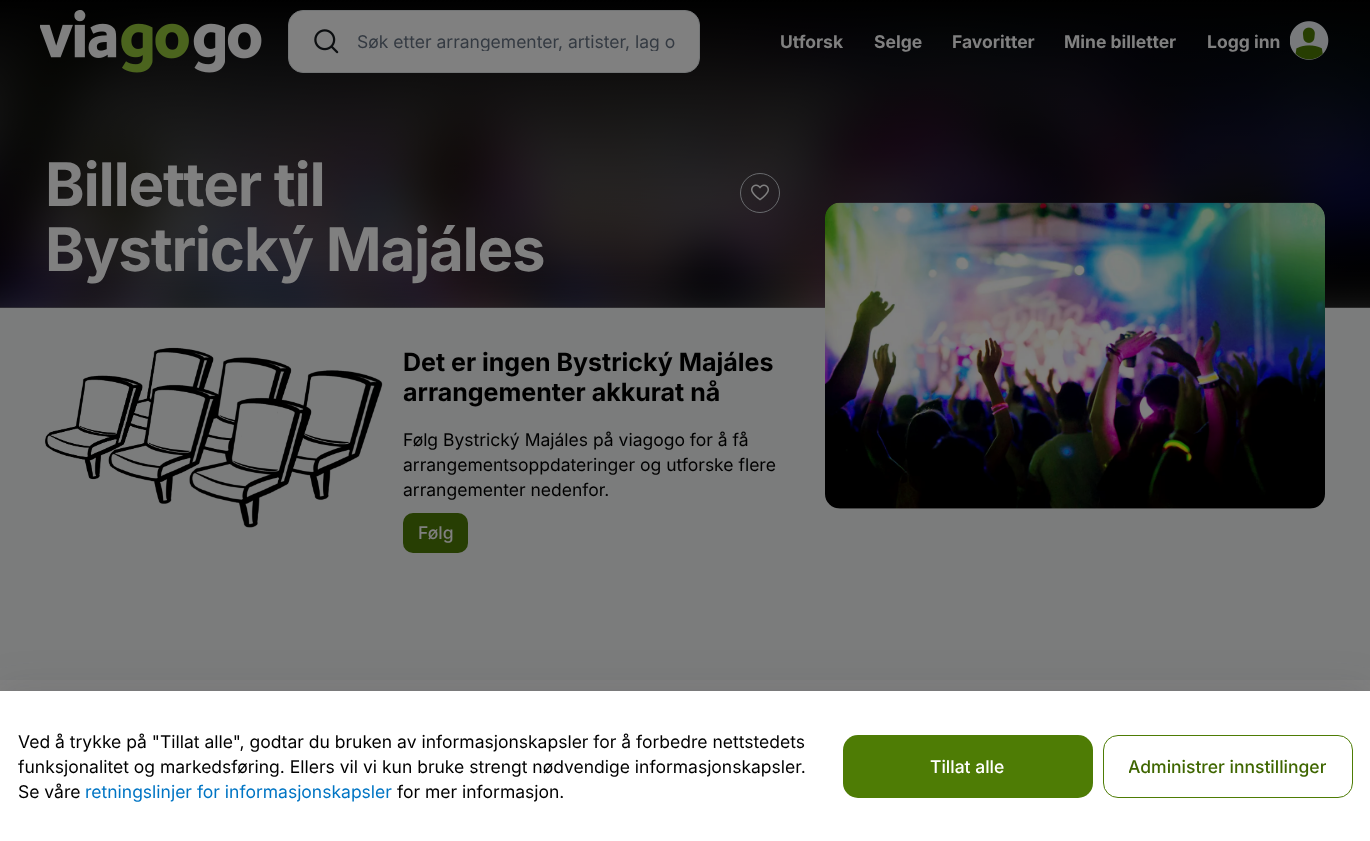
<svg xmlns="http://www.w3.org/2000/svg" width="1370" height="841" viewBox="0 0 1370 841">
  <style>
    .t1 { font: 17.5px Inter; fill: #343a42; }
    .t2 { font: bold 17.5px Inter; fill: #808080; }
    .t3 { font: bold 60px Inter; letter-spacing: -1.25px; fill: #808080; }
    .t4 { font: bold 25px Inter; fill: #000; }
    .t5 { font: 17.5px Inter; fill: #000; }
    .t6 { font: 500 17.5px Inter; fill: #808080; }
    .t7 { font: 17.5px Inter; fill: #0075c4; }
    .t8 { font: 500 17.5px Inter; fill: #fff; }
    .t9 { font: 500 17.5px Inter; fill: #3f6600; }
  </style>
  <defs>
    <linearGradient id="g1" gradientUnits="userSpaceOnUse" x1="685" y1="308" x2="685" y2="0"><stop offset="0" stop-color="#000" stop-opacity="0.5"/><stop offset="1" stop-color="#000"/></linearGradient>
    <clipPath id="clip1"><rect x="356" y="30" width="320" height="21"/></clipPath>
    <clipPath id="clip2"><rect x="1129" y="754" width="197" height="25"/></clipPath>
  </defs>
  <rect width="100%" height="100%" fill="#808080"/>
  <image x="0" y="4" width="1370" height="304" href="images/1.png"/>
  <rect x="0" y="0" width="1370" height="308" fill="url(#g1)"/>
  <image x="40" y="10" width="77" height="48" href="images/2.png"/>
  <image x="121" y="23" width="68" height="50" href="images/3.png"/>
  <image x="193" y="23" width="69" height="50" href="images/4.png"/>
  <rect x="288.5" y="10.5" width="411" height="62" rx="14.5" fill="#808080" stroke="#737576"/>
  <image x="314" y="29" width="25" height="25" href="images/5.png"/>
  <g clip-path="url(#clip1)">
    <text x="357" y="48" class="t1">Søk etter arrangementer, artister, lag o</text>
  </g>
  <text x="780" y="48" class="t2">Utforsk</text>
  <text x="874" y="48" class="t2">Selge</text>
  <text x="952" y="48" class="t2">Favoritter</text>
  <text x="1064" y="48" class="t2">Mine billetter</text>
  <text x="1207" y="48" class="t2">Logg inn</text>
  <image x="1290" y="21" width="39" height="39" href="images/6.png"/>
  <text x="45" y="206" class="t3">Billetter til</text>
  <text x="45" y="271" class="t3">Bystrický Majáles</text>
  <circle cx="760" cy="193" r="19.5" fill="none" stroke="#686a6d"/>
  <image x="751" y="184" width="18" height="17" href="images/7.png"/>
  <rect x="0" y="308" width="1370" height="372" fill="#7b7c7c"/>
  <image x="45" y="347" width="338" height="181" href="images/8.png"/>
  <text x="403" y="371" class="t4">Det er ingen Bystrický Majáles</text>
  <text x="403" y="401" class="t4">arrangementer akkurat nå</text>
  <text x="403" y="446" class="t5">Følg Bystrický Majáles på viagogo for å få</text>
  <text x="403" y="471" class="t5">arrangementsoppdateringer og utforske flere</text>
  <text x="403" y="496" class="t5">arrangementer nedenfor.</text>
  <rect x="403" y="513" width="65" height="40" rx="10" fill="#273e03"/>
  <text x="418" y="539" class="t6">Følg</text>
  <image x="825" y="202" width="500" height="307" href="images/9.png"/>
  <rect x="0" y="691" width="1370" height="150" fill="#2f343b24" filter="blur(20px)"/>
  <rect x="0" y="691" width="1370" height="150" fill="#fff"/>
  <text x="18" y="748" class="t5">Ved å trykke på "Tillat alle", godtar du bruken av informasjonskapsler for å forbedre nettstedets</text>
  <text x="18" y="773" class="t5">funksjonalitet og markedsføring. Ellers vil vi kun bruke strengt nødvendige informasjonskapsler.</text>
  <text x="18" y="798" class="t5">Se våre</text>
  <text x="85" y="798" class="t7">retningslinjer for informasjonskapsler</text>
  <text x="397" y="798" class="t5">for mer informasjon.</text>
  <rect x="843" y="735" width="250" height="63" rx="15" fill="#4e7c05"/>
  <text x="930" y="773" class="t8">Tillat alle</text>
  <rect x="1103.5" y="735.5" width="249" height="62" rx="14.5" fill="none" stroke="#4e7c05"/>
  <g clip-path="url(#clip2)">
    <text x="1128" y="773" class="t9">Administrer innstillinger</text>
  </g>
</svg>
